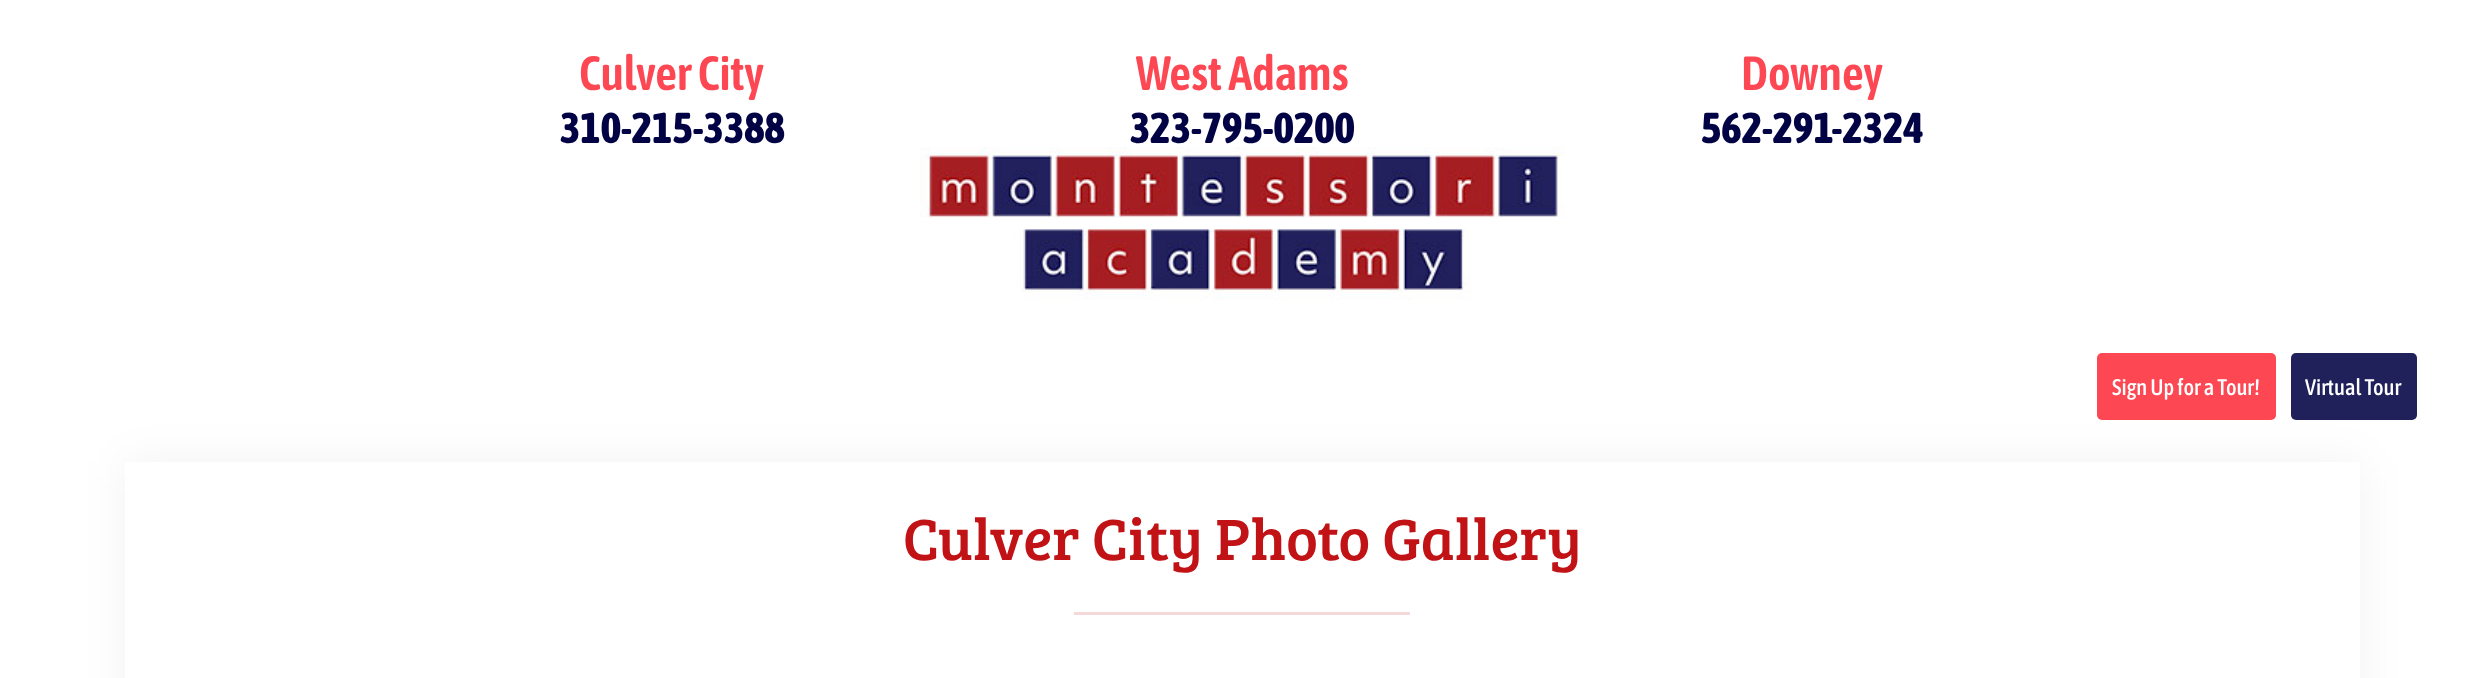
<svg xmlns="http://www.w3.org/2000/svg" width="2484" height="678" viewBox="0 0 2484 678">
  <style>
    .t1 { font: 600 48px Asap Condensed; fill: #fd4753; }
    .t2 { font: 800 43.25px Asap Condensed; fill: #020345; }
    .t3 { font: 500 22.5px Asap Condensed; fill: #fff; }
    .t4 { font: 60px Bree Serif; fill: #c11215; }
  </style>
  <rect width="100%" height="100%" fill="#fff"/>
  <text x="579" y="90" class="t1">Culver City</text>
  <text x="560" y="143" class="t2">310-215-3388</text>
  <text x="1136" y="90" class="t1">West Adams</text>
  <text x="1130" y="143" class="t2">323-795-0200</text>
  <text x="1741" y="90" class="t1">Downey</text>
  <text x="1701" y="143" class="t2">562-291-2324</text>
  <image x="920" y="147" width="644" height="153" href="images/1.png"/>
  <rect x="2097" y="353" width="179" height="67" rx="5" fill="#fd4753"/>
  <text x="2112" y="395" class="t3">Sign Up for a Tour!</text>
  <rect x="2291" y="353" width="126" height="67" rx="5" fill="#20215a"/>
  <text x="2305" y="395" class="t3">Virtual Tour</text>
  <rect x="125" y="462" width="2235" height="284" fill="#0000000d" filter="blur(22.5px)"/>
  <rect x="125" y="462" width="2235" height="216" fill="#fff"/>
  <text x="903" y="560" class="t4">Culver City Photo Gallery</text>
  <rect x="1074" y="612" width="336" height="3" fill="#f5d9da"/>
</svg>
